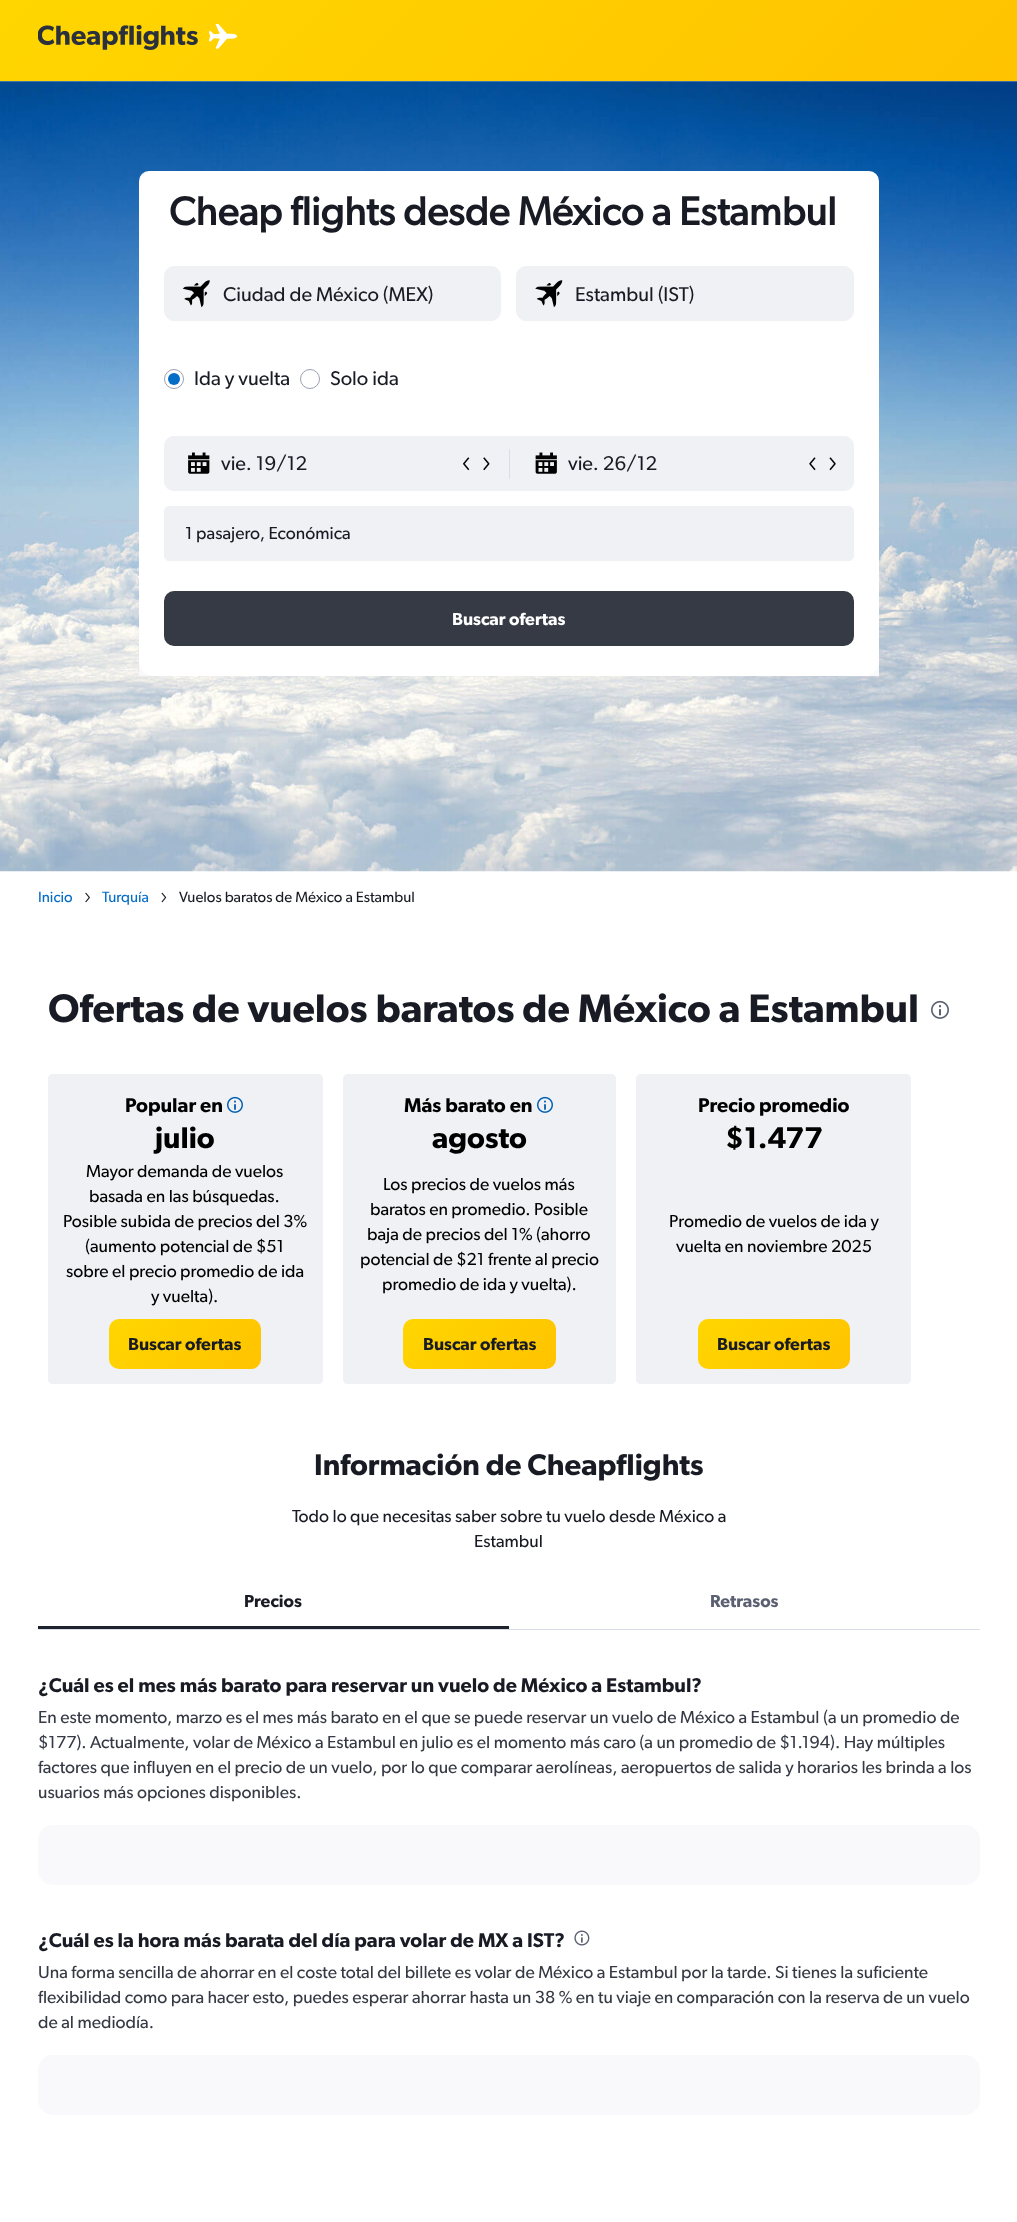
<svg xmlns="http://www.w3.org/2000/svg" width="1017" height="2222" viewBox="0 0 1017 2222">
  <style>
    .t1 { font: bold 40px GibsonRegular; fill: #191b24; }
    .t2 { font: 20px GibsonRegular; fill: #191b24; }
    .t3 { font: 17.5px GibsonRegular; fill: #191b24; }
    .t4 { font: 600 17.5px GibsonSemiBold; fill: #fff; }
    .t5 { font: 15px GibsonRegular; fill: #066dc7; }
    .t6 { font: 15px GibsonRegular; fill: #191b24; }
    .t7 { font: 600 40px GibsonSemiBold; fill: #191b24; }
    .t8 { font: 600 20px GibsonSemiBold; fill: #000; }
    .t9 { font: 600 30px GibsonSemiBold; fill: #000; }
    .t10 { font: 17.5px GibsonRegular; fill: #000; }
    .t11 { font: 600 17.5px GibsonSemiBold; fill: #191b24; }
    .t12 { font: 600 30px GibsonSemiBold; fill: #191b24; }
    .t13 { font: 600 17.5px GibsonSemiBold; fill: #5a6072; }
    .t14 { font: 600 20px GibsonSemiBold; fill: #191b24; }
    .t15 { font: 17.5px GibsonRegular; fill: #363a45; }
  </style>
  <defs>
    <linearGradient id="g1" gradientUnits="userSpaceOnUse" x1="234" y1="-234" x2="783" y2="315"><stop offset="0" stop-color="#ffd600"/><stop offset="1" stop-color="#ffc300"/></linearGradient>
    <linearGradient id="g2" gradientUnits="userSpaceOnUse" x1="134" y1="1293" x2="236" y2="1394"><stop offset="0" stop-color="#ffd600"/><stop offset="1" stop-color="#ffc300"/></linearGradient>
    <linearGradient id="g3" gradientUnits="userSpaceOnUse" x1="428" y1="1293" x2="530" y2="1395"><stop offset="0" stop-color="#ffd600"/><stop offset="1" stop-color="#ffc300"/></linearGradient>
    <linearGradient id="g4" gradientUnits="userSpaceOnUse" x1="723" y1="1293" x2="824" y2="1394"><stop offset="0" stop-color="#ffd600"/><stop offset="1" stop-color="#ffc300"/></linearGradient>
  </defs>
  <rect width="100%" height="100%" fill="#fff"/>
  <rect x="0" y="0" width="1017" height="81" fill="url(#g1)"/>
  <image x="38" y="25" width="160" height="25" href="images/1.png"/>
  <image x="209" y="24" width="28" height="25" href="images/2.png"/>
  <image x="0" y="81" width="1017" height="791" href="images/3.png"/>
  <rect x="139" y="171" width="740" height="505" rx="10" fill="#fff"/>
  <text x="169" y="225" class="t1">Cheap flights desde México a Estambul</text>
  <rect x="139" y="661" width="740" height="15" fill="#f9f9fb"/>
  <path d="M139 236H879V661C879 669.5 872.5 676 864 676H154C145.5 676 139 669.5 139 661Z" fill="#fff"/>
  <rect x="164.5" y="266.5" width="336" height="54" rx="9.5" fill="#f0f1f5" stroke="#f0f1f5"/>
  <image x="182" y="280" width="28" height="28" href="images/4.png"/>
  <text x="223" y="301" class="t2">Ciudad de México (MEX)</text>
  <rect x="516.5" y="266.5" width="337" height="54" rx="9.5" fill="#f0f1f5" stroke="#f0f1f5"/>
  <image x="535" y="280" width="28" height="28" href="images/5.png"/>
  <text x="575" y="301" class="t2">Estambul (IST)</text>
  <circle cx="174" cy="379" r="6" fill="#066dc7"/>
  <circle cx="174" cy="379" r="9.5" fill="none" stroke="#9ba0b0"/>
  <text x="194" y="385" class="t2">Ida y vuelta</text>
  <circle cx="310" cy="379" r="9.5" fill="none" stroke="#9ba0b0"/>
  <text x="330" y="385" class="t2">Solo ida</text>
  <rect x="164" y="436" width="690" height="55" rx="10" fill="#f0f1f5"/>
  <rect x="164" y="436" width="344" height="55" rx="10" fill="#f0f1f5"/>
  <image x="188" y="452" width="22" height="22" href="images/6.png"/>
  <text x="221" y="470" class="t2">vie. 19/12</text>
  <image x="463" y="457" width="7" height="14" href="images/7.png"/>
  <image x="483" y="457" width="7" height="14" href="images/8.png"/>
  <rect x="509" y="449" width="1" height="30" fill="#d9dde8"/>
  <rect x="511" y="436" width="343" height="55" rx="10" fill="#f0f1f5"/>
  <image x="535" y="452" width="22" height="22" href="images/9.png"/>
  <text x="568" y="470" class="t2">vie. 26/12</text>
  <image x="809" y="457" width="7" height="14" href="images/10.png"/>
  <image x="829" y="457" width="7" height="14" href="images/11.png"/>
  <rect x="164.5" y="506.5" width="689" height="54" rx="4.5" fill="#f0f1f5" stroke="#f0f1f5"/>
  <text x="185" y="539" class="t3">1 pasajero, Económica</text>
  <rect x="164" y="591" width="690" height="55" rx="10" fill="#363a45"/>
  <text x="452" y="625" class="t4">Buscar ofertas</text>
  <text x="38" y="902" class="t5">Inicio</text>
  <image x="85" y="892" width="5" height="11" href="images/12.png"/>
  <text x="102" y="902" class="t5">Turquía</text>
  <image x="161" y="892" width="6" height="11" href="images/13.png"/>
  <text x="179" y="902" class="t6">Vuelos baratos de México a Estambul</text>
  <text x="48" y="1022" class="t7">Ofertas de vuelos baratos de México a Estambul</text>
  <image x="931" y="1000" width="18" height="19" href="images/14.png"/>
  <path d="M53 1074H318C321 1074 323 1076 323 1079V1159H48V1079C48 1076 50 1074 53 1074Z" fill="#f0f1f5"/>
  <text x="125" y="1112" class="t8">Popular en</text>
  <image x="227" y="1096" width="16" height="17" href="images/15.png"/>
  <text x="155" y="1148" class="t9">julio</text>
  <path d="M348 1074H611C614 1074 616 1076 616 1079V1159H343V1079C343 1076 345 1074 348 1074Z" fill="#f0f1f5"/>
  <text x="404" y="1112" class="t8">Más barato en</text>
  <image x="537" y="1096" width="16" height="17" href="images/15.png"/>
  <text x="432" y="1148" class="t9">agosto</text>
  <path d="M641 1074H906C909 1074 911 1076 911 1079V1159H636V1079C636 1076 638 1074 641 1074Z" fill="#f0f1f5"/>
  <text x="698" y="1112" class="t8">Precio promedio</text>
  <text x="725" y="1148" class="t9">$1.477</text>
  <path d="M48 1159H323V1379C323 1382 321 1384 318 1384H53C50 1384 48 1382 48 1379Z" fill="#f0f1f5"/>
  <text x="86" y="1177" class="t10">Mayor demanda de vuelos</text>
  <text x="89" y="1202" class="t10">basada en las búsquedas.</text>
  <text x="63" y="1227" class="t10">Posible subida de precios del 3%</text>
  <text x="85" y="1252" class="t10">(aumento potencial de $51</text>
  <text x="66" y="1277" class="t10">sobre el precio promedio de ida</text>
  <text x="151" y="1302" class="t10">y vuelta).</text>
  <rect x="109" y="1319" width="152" height="50" rx="10" fill="url(#g2)"/>
  <text x="128" y="1350" class="t11">Buscar ofertas</text>
  <path d="M343 1159H616V1379C616 1382 614 1384 611 1384H348C345 1384 343 1382 343 1379Z" fill="#f0f1f5"/>
  <text x="383" y="1190" class="t10">Los precios de vuelos más</text>
  <text x="370" y="1215" class="t10">baratos en promedio. Posible</text>
  <text x="367" y="1240" class="t10">baja de precios del 1% (ahorro</text>
  <text x="360" y="1265" class="t10">potencial de $21 frente al precio</text>
  <text x="382" y="1290" class="t10">promedio de ida y vuelta).</text>
  <rect x="403" y="1319" width="153" height="50" rx="10" fill="url(#g3)"/>
  <text x="423" y="1350" class="t11">Buscar ofertas</text>
  <path d="M636 1159H911V1379C911 1382 909 1384 906 1384H641C638 1384 636 1382 636 1379Z" fill="#f0f1f5"/>
  <text x="669" y="1227" class="t10">Promedio de vuelos de ida y</text>
  <text x="676" y="1252" class="t10">vuelta en noviembre 2025</text>
  <rect x="698" y="1319" width="152" height="50" rx="10" fill="url(#g4)"/>
  <text x="717" y="1350" class="t11">Buscar ofertas</text>
  <text x="314" y="1475" class="t12">Información de Cheapflights</text>
  <text x="292" y="1522" class="t3">Todo lo que necesitas saber sobre tu vuelo desde México a</text>
  <text x="474" y="1547" class="t3">Estambul</text>
  <text x="244" y="1607" class="t11">Precios</text>
  <rect x="38" y="1626" width="471" height="3" fill="#1f232d"/>
  <text x="710" y="1607" class="t13">Retrasos</text>
  <rect x="38" y="1629" width="942" height="1" fill="#d9dde8"/>
  <text x="38" y="1692" class="t14">¿Cuál es el mes más barato para reservar un vuelo de México a Estambul?</text>
  <text x="38" y="1723" class="t15">En este momento, marzo es el mes más barato en el que se puede reservar un vuelo de México a Estambul (a un promedio de</text>
  <text x="38" y="1748" class="t15">$177). Actualmente, volar de México a Estambul en julio es el momento más caro (a un promedio de $1.194). Hay múltiples</text>
  <text x="38" y="1773" class="t15">factores que influyen en el precio de un vuelo, por lo que comparar aerolíneas, aeropuertos de salida y horarios les brinda a los</text>
  <text x="38" y="1798" class="t15">usuarios más opciones disponibles.</text>
  <rect x="38" y="1825" width="942" height="60" rx="15" fill="#f9f9fb"/>
  <text x="38" y="1947" class="t14">¿Cuál es la hora más barata del día para volar de MX a IST?</text>
  <image x="574" y="1930" width="16" height="16" href="images/16.png"/>
  <text x="38" y="1978" class="t15">Una forma sencilla de ahorrar en el coste total del billete es volar de México a Estambul por la tarde. Si tienes la suficiente</text>
  <text x="38" y="2003" class="t15">flexibilidad como para hacer esto, puedes esperar ahorrar hasta un 38 % en tu viaje en comparación con la reserva de un vuelo</text>
  <text x="38" y="2028" class="t15">de al mediodía.</text>
  <rect x="38" y="2055" width="942" height="60" rx="15" fill="#f9f9fb"/>
</svg>
